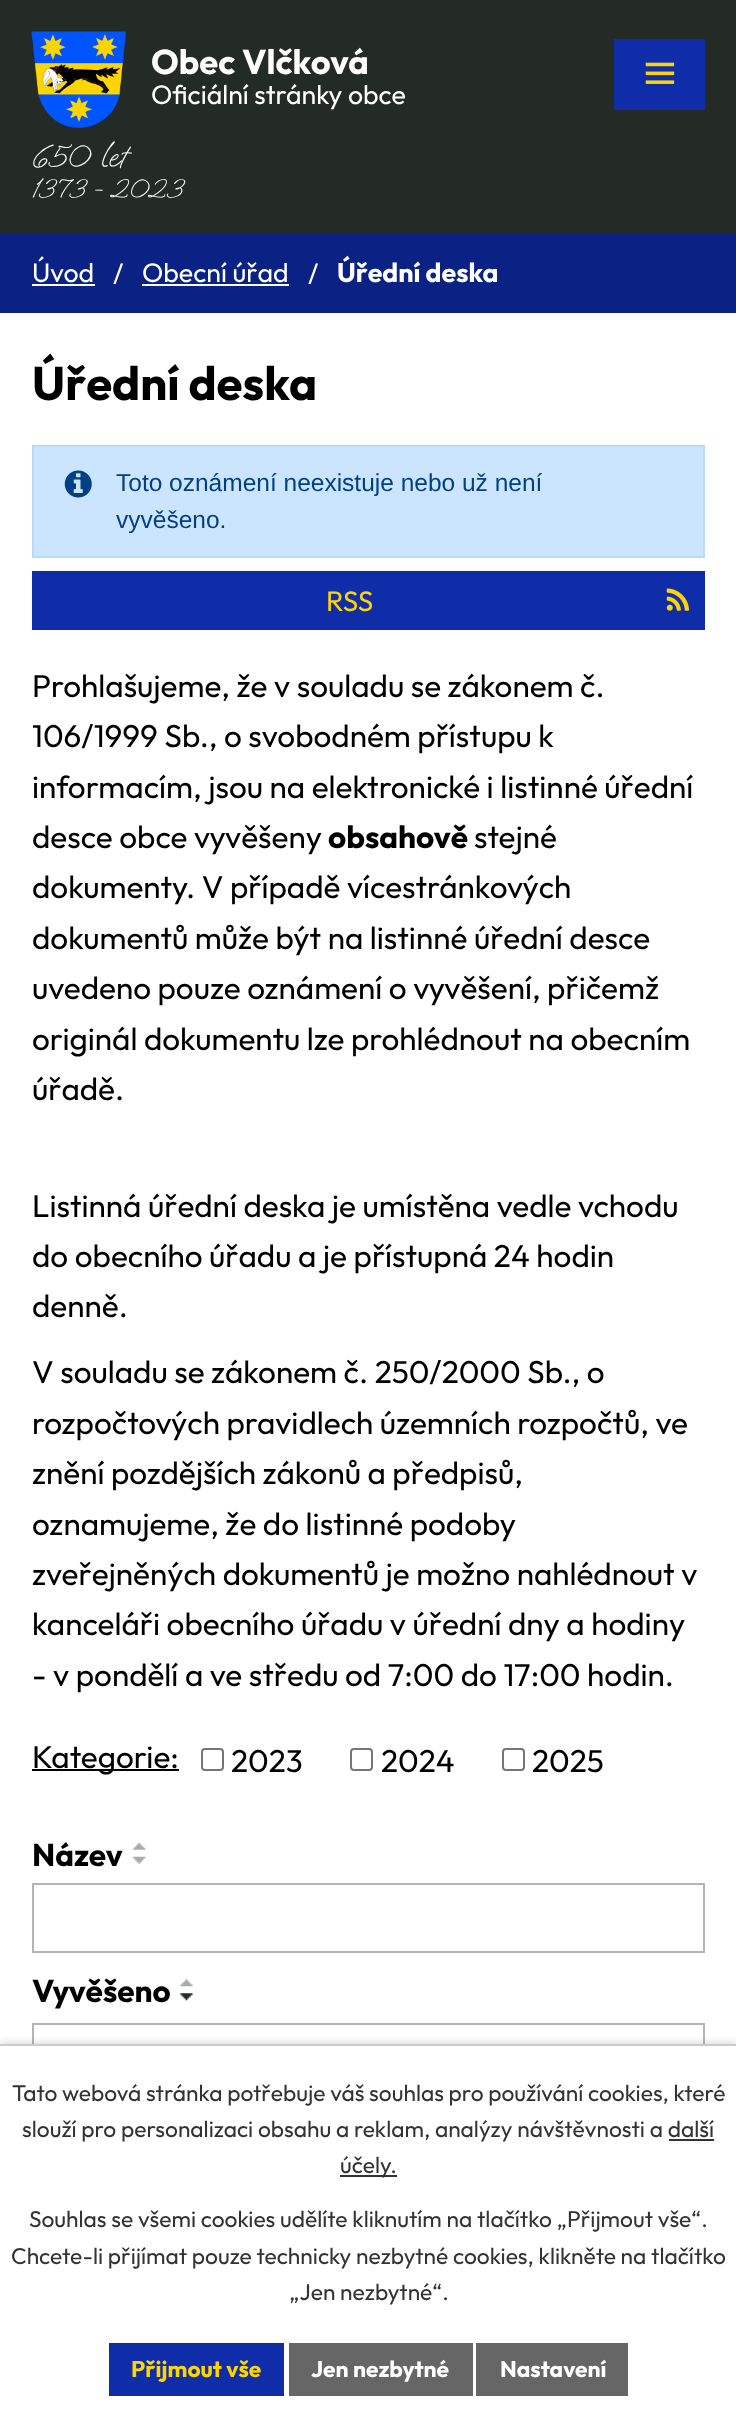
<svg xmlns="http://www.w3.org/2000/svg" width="736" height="2422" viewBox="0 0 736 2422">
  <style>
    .t1 { font: bold 34.5px Outfit; fill: #fff; }
    .t2 { font: 26.75px Outfit; fill: #fff; }
    .t3 { font: 31.5px Oooh Baby; fill: #fff; }
    .t4 { font: 26.75px Oooh Baby; fill: #fff; }
    .t5 { font: bold 26.75px Outfit; fill: #fff; }
    .t6 { font: bold 47.25px Outfit; fill: #000; }
    .t7 { font: 24.5px Liberation Sans; fill: #004085; }
    .t8 { font: 28px Outfit; fill: #fed403; }
    .t9 { font: 31.5px Outfit; fill: #000; }
    .t10 { font: bold 31.5px Outfit; fill: #000; }
    .t11 { font: 22.75px Outfit; fill: #333; }
    .t12 { font: bold 22.75px Outfit; fill: #fed403; }
    .t13 { font: bold 22.75px Outfit; fill: #fff; }
  </style>
  <rect width="100%" height="100%" fill="#fff"/>
  <rect x="0" y="0" width="736" height="233" fill="#242a26"/>
  <text x="151" y="74" class="t1">Obec Vlčková</text>
  <text x="151" y="104" class="t2">Oficiální stránky obce</text>
  <image x="31" y="31" width="95" height="97" href="images/1.png"/>
  <text x="32" y="166" class="t3">650 let</text>
  <text x="32" y="197" class="t4">1373 - 2023</text>
  <rect x="614" y="39" width="91" height="71" fill="#0f2da9"/>
  <image x="645" y="62" width="30" height="22" href="images/2.png"/>
  <rect x="0" y="233" width="736" height="80" fill="#092283"/>
  <text x="32" y="282" class="t2">Úvod</text>
  <rect x="32" y="284" width="63" height="2" fill="#fff"/>
  <text x="113" y="283" class="t2">/</text>
  <text x="142" y="282" class="t2">Obecní úřad</text>
  <rect x="142" y="284" width="147" height="2" fill="#fff"/>
  <text x="308" y="283" class="t2">/</text>
  <text x="337" y="282" class="t5">Úřední deska</text>
  <text x="32" y="400" class="t6">Úřední deska</text>
  <rect x="33" y="446" width="671" height="111" fill="#cce5ff" stroke="#b8daff" stroke-width="2"/>
  <image x="64" y="470" width="28" height="28" href="images/3.png"/>
  <text x="116" y="491" class="t7">Toto oznámení neexistuje nebo už není</text>
  <text x="116" y="528" class="t7">vyvěšeno.</text>
  <rect x="32" y="571" width="673" height="59" fill="#0f2da9"/>
  <text x="326" y="611" class="t8">RSS</text>
  <image x="666" y="588" width="23" height="23" href="images/4.png"/>
  <text x="32" y="697" class="t9">Prohlašujeme, že v souladu se zákonem č.</text>
  <text x="32" y="747" class="t9">106/1999 Sb., o svobodném přístupu k</text>
  <text x="32" y="798" class="t9">informacím, jsou na elektronické i listinné úřední</text>
  <text x="32" y="848" class="t9">desce obce vyvěšeny</text>
  <text x="328" y="848" class="t10">obsahově</text>
  <text x="474" y="848" class="t9">stejné</text>
  <text x="32" y="898" class="t9">dokumenty. V případě vícestránkových</text>
  <text x="32" y="949" class="t9">dokumentů může být na listinné úřední desce</text>
  <text x="32" y="999" class="t9">uvedeno pouze oznámení o vyvěšení, přičemž</text>
  <text x="32" y="1050" class="t9">originál dokumentu lze prohlédnout na obecním</text>
  <text x="32" y="1100" class="t9">úřadě.</text>
  <text x="32" y="1217" class="t9">Listinná úřední deska je umístěna vedle vchodu</text>
  <text x="32" y="1267" class="t9">do obecního úřadu a je přístupná 24 hodin</text>
  <text x="32" y="1317" class="t9">denně.</text>
  <text x="32" y="1383" class="t9">V souladu se zákonem č. 250/2000 Sb., o</text>
  <text x="32" y="1434" class="t9">rozpočtových pravidlech územních rozpočtů, ve</text>
  <text x="32" y="1484" class="t9">znění pozdějších zákonů a předpisů,</text>
  <text x="32" y="1535" class="t9">oznamujeme, že do listinné podoby</text>
  <text x="32" y="1585" class="t9">zveřejněných dokumentů je možno nahlédnout v</text>
  <text x="32" y="1635" class="t9">kanceláři obecního úřadu v úřední dny a hodiny</text>
  <text x="32" y="1686" class="t9">- v pondělí a ve středu od 7:00 do 17:00 hodin.</text>
  <rect x="32" y="1769" width="147" height="2" fill="#000"/>
  <text x="32" y="1768" class="t9">Kategorie:</text>
  <rect x="202" y="1749" width="21" height="21" rx="3" fill="none" stroke="#767676" stroke-width="2"/>
  <text x="231" y="1772" class="t9">2023</text>
  <rect x="351" y="1749" width="21" height="21" rx="3" fill="none" stroke="#767676" stroke-width="2"/>
  <text x="381" y="1772" class="t9">2024</text>
  <rect x="503" y="1749" width="21" height="21" rx="3" fill="none" stroke="#767676" stroke-width="2"/>
  <text x="532" y="1772" class="t9">2025</text>
  <text x="32" y="1866" class="t10">Název</text>
  <image x="132" y="1842" width="14" height="8" href="images/5.png"/>
  <image x="132" y="1856" width="14" height="8" href="images/6.png"/>
  <text x="32" y="2002" class="t10">Vyvěšeno</text>
  <image x="179" y="1979" width="14" height="8" href="images/7.png"/>
  <image x="179" y="1993" width="14" height="8" href="images/8.png"/>
  <rect x="33" y="1884" width="671" height="68" fill="none" stroke="#b5b5b5" stroke-width="2"/>
  <rect x="33" y="2024" width="671" height="68" fill="none" stroke="#b5b5b5" stroke-width="2"/>
  <rect x="0" y="2044" width="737" height="378" fill="#00000033" filter="blur(4.5px)"/>
  <rect x="0" y="2046" width="736" height="376" fill="#fff"/>
  <rect x="0" y="2044" width="736" height="2" fill="#ccc"/>
  <text x="12" y="2101" class="t11">Tato webová stránka potřebuje váš souhlas pro používání cookies, které</text>
  <text x="22" y="2137" class="t11">slouží pro personalizaci obsahu a reklam, analýzy návštěvnosti a další</text>
  <rect x="340" y="2175" width="57" height="2" fill="#333"/>
  <text x="340" y="2173" class="t11">účely.</text>
  <rect x="669" y="2139" width="45" height="2" fill="#333"/>
  <text x="29" y="2227" class="t11">Souhlas se všemi cookies udělíte kliknutím na tlačítko „Přijmout vše“.</text>
  <text x="11" y="2264" class="t11">Chcete-li přijímat pouze technicky nezbytné cookies, klikněte na tlačítko</text>
  <text x="289" y="2300" class="t11">„Jen nezbytné“.</text>
  <rect x="109" y="2343" width="175" height="53" fill="#0f2da9"/>
  <text x="131" y="2377" class="t12">Přijmout vše</text>
  <rect x="289" y="2343" width="184" height="53" fill="#666"/>
  <text x="311" y="2377" class="t13">Jen nezbytné</text>
  <rect x="476" y="2343" width="152" height="53" fill="#666"/>
  <text x="500" y="2377" class="t13">Nastavení</text>
</svg>
